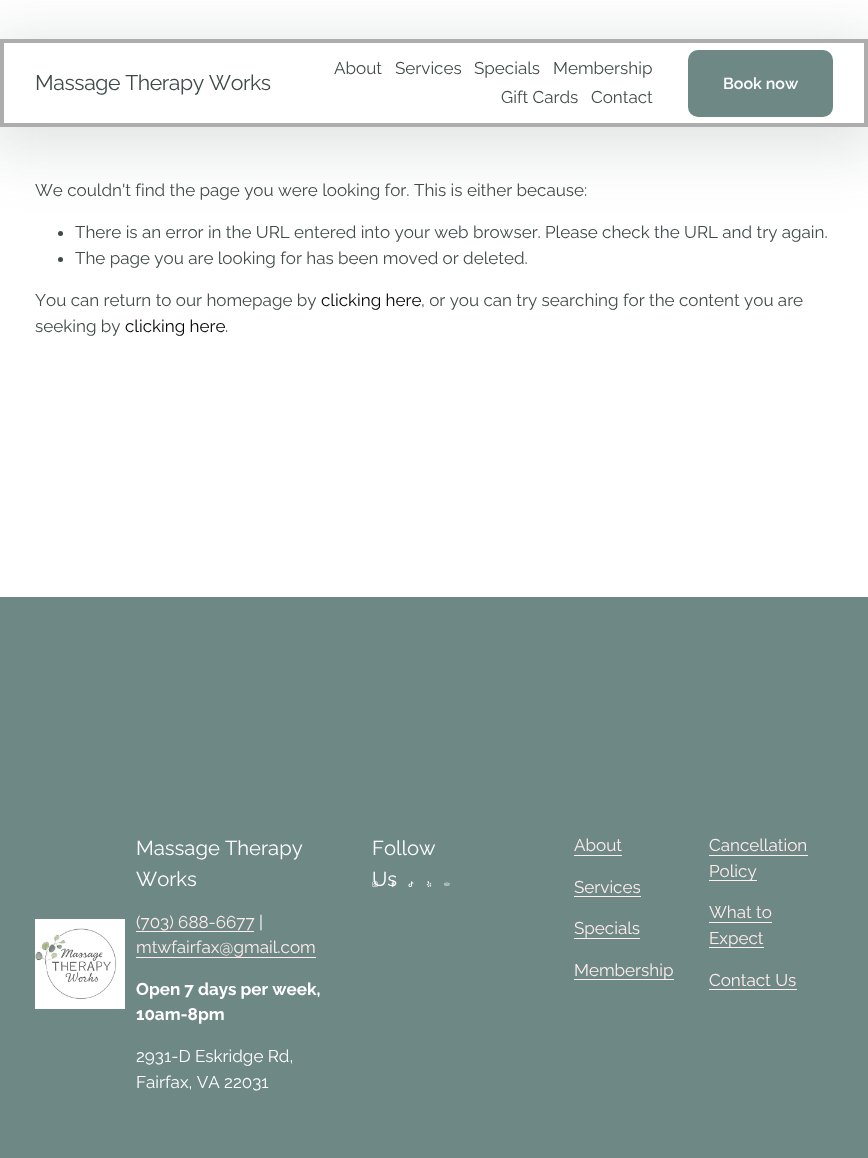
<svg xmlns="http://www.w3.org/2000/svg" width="868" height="1158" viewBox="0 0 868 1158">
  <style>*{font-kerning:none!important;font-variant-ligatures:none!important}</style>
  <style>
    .t1 { font: 21.25px Raleway; letter-spacing: -0.4px; fill: #3f4a49; }
    .t2 { font: 17.05px Raleway; fill: #3f4a49; }
    .t3 { font: 600 16px Raleway; fill: #fff; }
    .t4 { font: 17.05px Raleway; fill: #000; }
    .t5 { font: 20.25px Raleway; fill: #fff; }
    .t6 { font: 17.05px Raleway; fill: #ffeded; }
    .t7 { font: 17.05px Raleway; fill: #fff; }
    .t8 { font: bold 17.05px Raleway; fill: #fff; }
  </style>
  <defs>
    <clipPath id="clip1"><path d="M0 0H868V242H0ZM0 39H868V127H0Z" clip-rule="evenodd"/></clipPath>
  </defs>
  <rect width="100%" height="100%" fill="#fff"/>
  <circle cx="60.5" cy="233.5" r="2.5" fill="#3f4a49"/>
  <g clip-path="url(#clip1)">
    <rect x="-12" y="39" width="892" height="112" fill="#3f4a4926" filter="blur(30px)"/>
  </g>
  <rect x="2" y="41" width="864" height="84" fill="none" stroke="#adadad" stroke-width="4"/>
  <text x="35" y="90" class="t1">Massage Therapy Works</text>
  <text x="334" y="74" class="t2">About</text>
  <text x="395" y="74" class="t2">Services</text>
  <text x="474" y="74" class="t2">Specials</text>
  <text x="553" y="74" class="t2">Membership</text>
  <text x="501" y="103" class="t2">Gift Cards</text>
  <text x="591" y="103" class="t2">Contact</text>
  <rect x="688" y="50" width="145" height="67" rx="10" fill="#6e8885"/>
  <text x="723" y="89" class="t3">Book now</text>
  <text x="35" y="196" class="t2">We couldn't find the page you were looking for.</text>
  <text x="414" y="196" class="t2">This is either because:</text>
  <text x="75" y="238" class="t2">There is an error in the URL entered into your web browser.</text>
  <text x="545" y="238" class="t2">Please check the URL and try again.</text>
  <circle cx="60.5" cy="259.5" r="2.5" fill="#3f4a49"/>
  <text x="75" y="264" class="t2">The page you are looking for has been moved or deleted.</text>
  <text x="35" y="306" class="t2">You can return to our homepage by</text>
  <text x="321" y="306" class="t4">clicking here</text>
  <text x="421" y="306" class="t2">, or you can try searching for the content you are</text>
  <text x="35" y="332" class="t2">seeking by</text>
  <text x="125" y="332" class="t4">clicking here</text>
  <text x="225" y="332" class="t2">.</text>
  <rect x="0" y="597" width="868" height="561" fill="#6e8885"/>
  <text x="136" y="855" class="t5">Massage Therapy</text>
  <text x="136" y="886" class="t5">Works</text>
  <text x="136" y="928" class="t6">(703) 688-6677</text>
  <rect x="136" y="931" width="118" height="1" fill="#ffeded"/>
  <text x="259" y="928" class="t7">|</text>
  <text x="136" y="953" class="t6">mtwfairfax@gmail.com</text>
  <rect x="136" y="957" width="180" height="1" fill="#ffeded"/>
  <text x="136" y="995" class="t8">Open 7 days per week,</text>
  <text x="136" y="1020" class="t8">10am-8pm</text>
  <text x="136" y="1062" class="t7">2931-D Eskridge Rd,</text>
  <text x="136" y="1088" class="t7">Fairfax, VA 22031</text>
  <text x="372" y="855" class="t5">Follow</text>
  <text x="372" y="886" class="t5">Us</text>
  <text x="574" y="851" class="t6">About</text>
  <rect x="574" y="855" width="48" height="1" fill="#ffeded"/>
  <text x="574" y="893" class="t6">Services</text>
  <rect x="574" y="896" width="67" height="1" fill="#ffeded"/>
  <text x="574" y="934" class="t6">Specials</text>
  <rect x="574" y="938" width="66" height="1" fill="#ffeded"/>
  <rect x="574" y="979" width="100" height="1" fill="#ffeded"/>
  <text x="574" y="976" class="t6">Membership</text>
  <text x="709" y="851" class="t6">Cancellation</text>
  <rect x="709" y="855" width="99" height="1" fill="#ffeded"/>
  <rect x="709" y="880" width="48" height="1" fill="#ffeded"/>
  <text x="709" y="877" class="t6">Policy</text>
  <text x="709" y="918" class="t6">What to</text>
  <rect x="709" y="922" width="63" height="1" fill="#ffeded"/>
  <rect x="709" y="947" width="55" height="1" fill="#ffeded"/>
  <text x="709" y="944" class="t6">Expect</text>
  <text x="709" y="986" class="t6">Contact Us</text>
  <rect x="709" y="989" width="88" height="1" fill="#ffeded"/>
  <image x="372" y="881" width="6" height="7" href="images/1.png"/>
  <image x="391" y="881" width="4" height="7" href="images/2.png"/>
  <image x="408" y="881" width="6" height="6" href="images/3.png"/>
  <image x="426" y="881" width="6" height="6" href="images/4.png"/>
  <image x="444" y="882" width="6" height="4" href="images/5.png"/>
  <image x="35" y="919" width="90" height="90" href="images/6.png"/>
</svg>
